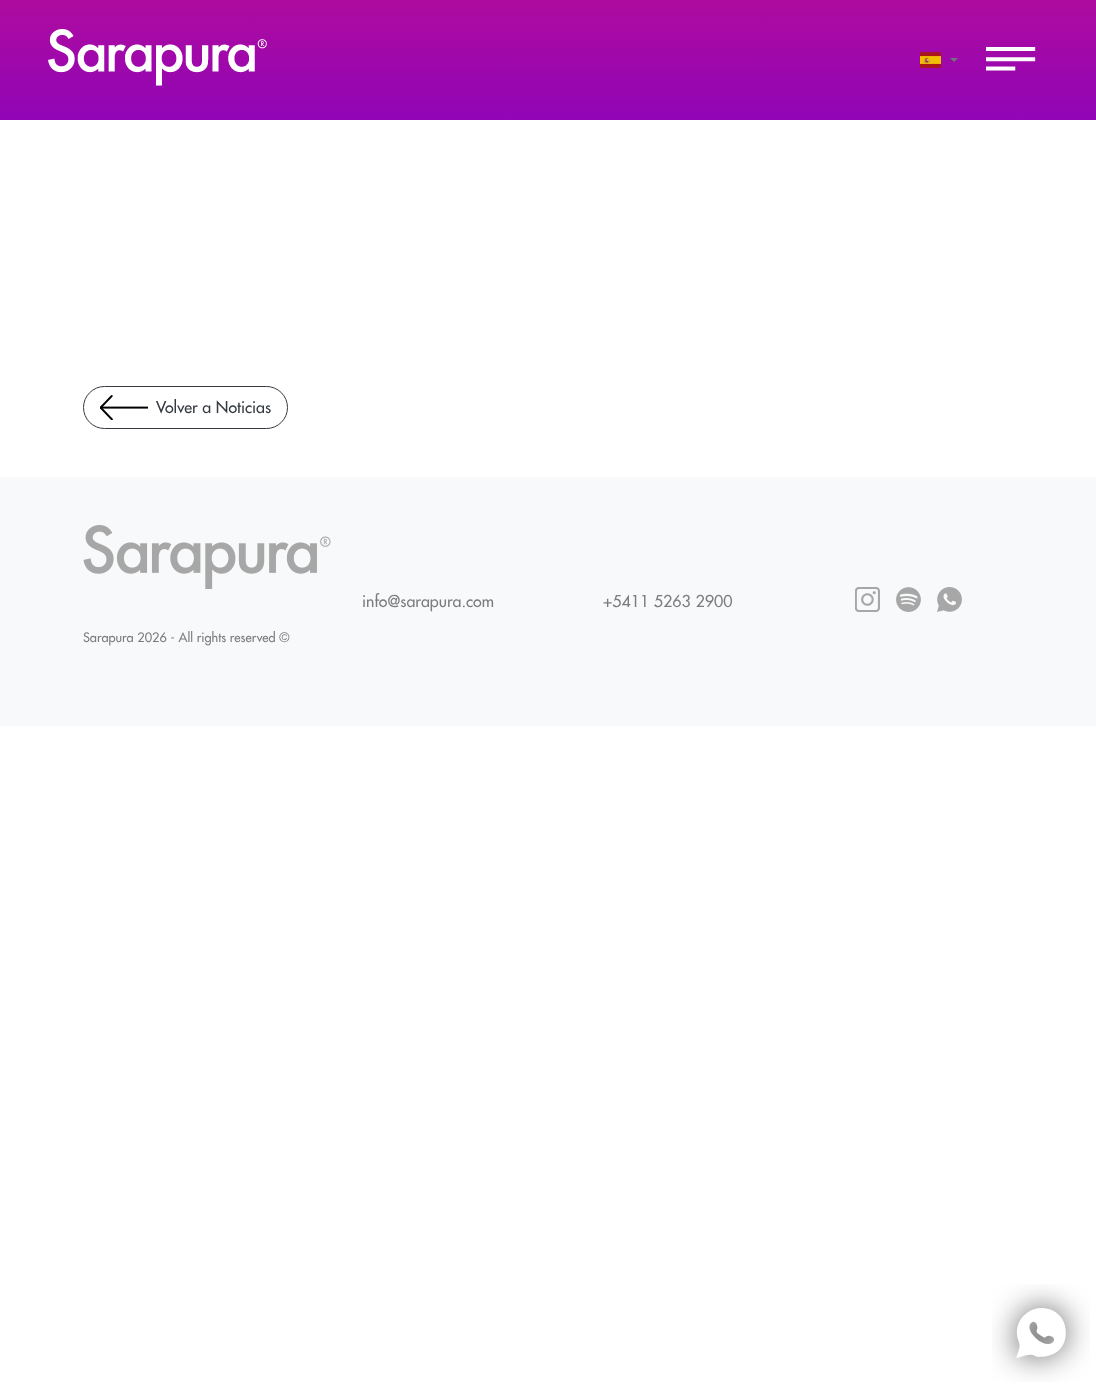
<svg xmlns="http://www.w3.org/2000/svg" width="1096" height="1388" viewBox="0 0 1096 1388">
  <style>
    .t1 { font: 500 16px Futura; fill: #343a40; }
    .t2 { font: 500 16px Futura; fill: #7c7d7d; }
    .t3 { font: 500 12.75px Futura; fill: #7c7d7d; }
  </style>
  <defs>
    <linearGradient id="g1" gradientUnits="userSpaceOnUse" x1="548" y1="120" x2="548" y2="0"><stop offset="0" stop-color="#9005b6"/><stop offset="1" stop-color="#af0b9f"/></linearGradient>
  </defs>
  <rect width="100%" height="100%" fill="#fff"/>
  <rect x="0" y="0" width="1096" height="120" fill="url(#g1)"/>
  <image x="48" y="29" width="219" height="57" href="images/1.png"/>
  <image x="920" y="52" width="21" height="16" href="images/2.png"/>
  <path d="M950 58H958L954 62Z" fill="#6c757d"/>
  <image x="986" y="47" width="50" height="24" href="images/3.png"/>
  <rect x="83.5" y="386.5" width="204" height="42" rx="21" fill="none" stroke="#343a40"/>
  <image x="100" y="395" width="48" height="25" href="images/4.png"/>
  <text x="156" y="413" class="t1">Volver a Noticias</text>
  <rect x="0" y="477" width="1096" height="249" fill="#f8f9fa"/>
  <text x="362" y="607" class="t2">info@sarapura.com</text>
  <text x="603" y="607" class="t2">+5411 5263 2900</text>
  <image x="855" y="587" width="25" height="25" href="images/5.png"/>
  <image x="896" y="587" width="25" height="25" href="images/6.png"/>
  <image x="937" y="587" width="25" height="25" href="images/7.png"/>
  <image x="83" y="525" width="248" height="64" href="images/8.png"/>
  <text x="83" y="642" class="t3">Sarapura 2026 - All rights reserved ©</text>
  <image x="992" y="1284" width="98" height="98" href="images/9.png"/>
</svg>
